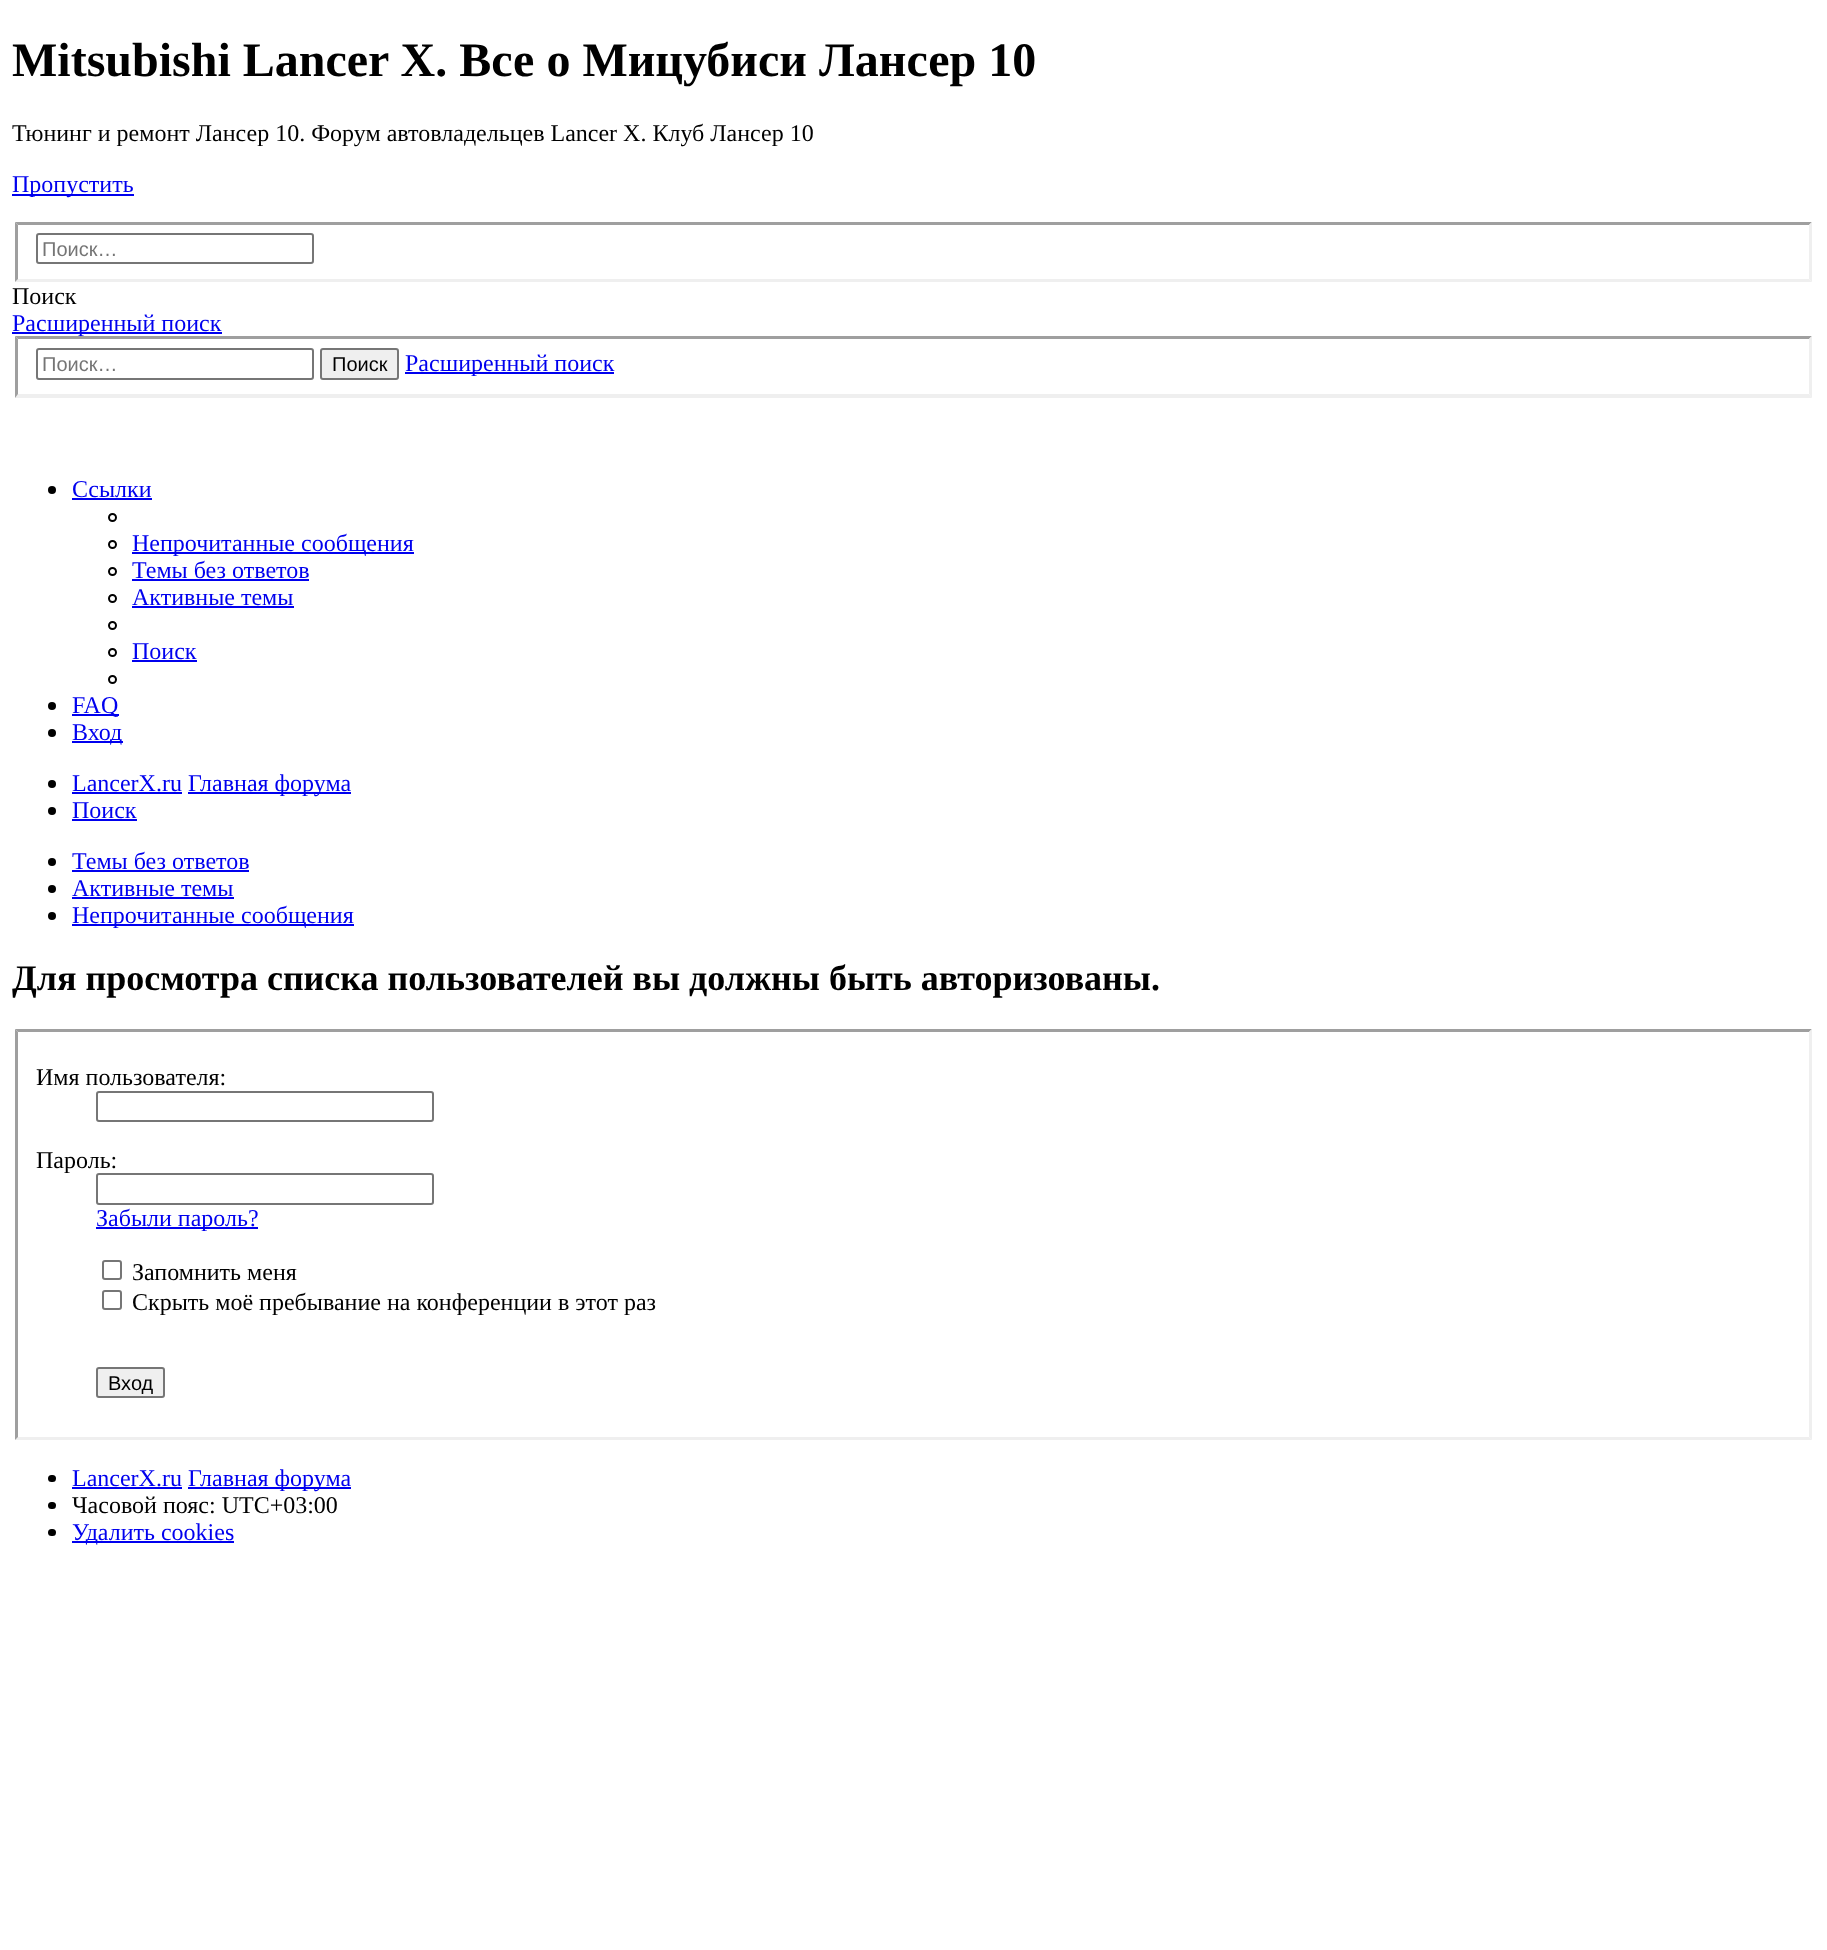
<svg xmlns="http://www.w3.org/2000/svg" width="1827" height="1950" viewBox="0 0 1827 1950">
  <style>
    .t1 { font: bold 48px Liberation Serif; fill: #000; }
    .t2 { font: 24px Liberation Serif; fill: #000; }
    .t3 { font: 24px Liberation Serif; fill: #00e; }
    .t4 { font: 20px Liberation Sans; fill: #757575; }
    .t5 { font: 20px Liberation Sans; fill: #000; }
    .t6 { font: bold 36px Liberation Serif; fill: #000; }
  </style>
  <rect width="100%" height="100%" fill="#fff"/>
  <text x="12" y="76" class="t1">Mitsubishi Lancer X. Все о Мицубиси Лансер 10</text>
  <text x="12" y="141" class="t2">Тюнинг и ремонт Лансер 10. Форум автовладельцев Lancer X. Клуб Лансер 10</text>
  <rect x="12" y="194" width="122" height="2" fill="#00e"/>
  <text x="12" y="192" class="t3">Пропустить</text>
  <path d="M15 222H1812L1809 225H18Z" fill="#9f9f9f"/>
  <path d="M1812 222V282L1809 279V225Z" fill="#efefef"/>
  <path d="M1812 282H15L18 279H1809Z" fill="#efefef"/>
  <path d="M15 282V222L18 225V279Z" fill="#9f9f9f"/>
  <rect x="37" y="234" width="276" height="29" rx="2" fill="none" stroke="#767676" stroke-width="2"/>
  <text x="42" y="256" class="t4">Поиск…</text>
  <text x="12" y="304" class="t2">Поиск</text>
  <rect x="12" y="332" width="210" height="2" fill="#00e"/>
  <path d="M15 336H1812L1809 339H18Z" fill="#9f9f9f"/>
  <path d="M1812 336V398L1809 394V339Z" fill="#efefef"/>
  <path d="M1812 398H15L18 394H1809Z" fill="#efefef"/>
  <path d="M15 398V336L18 339V394Z" fill="#9f9f9f"/>
  <text x="12" y="331" class="t3">Расширенный поиск</text>
  <rect x="37" y="349" width="276" height="30" rx="2" fill="none" stroke="#767676" stroke-width="2"/>
  <text x="42" y="371" class="t4">Поиск…</text>
  <rect x="321" y="349" width="77" height="30" rx="2" fill="#efefef" stroke="#767676" stroke-width="2"/>
  <text x="332" y="371" class="t5">Поиск</text>
  <rect x="405" y="372" width="209" height="2" fill="#00e"/>
  <text x="405" y="371" class="t3">Расширенный поиск</text>
  <circle cx="52" cy="490" r="4" fill="#000"/>
  <text x="72" y="497" class="t3">Ссылки</text>
  <rect x="72" y="498" width="80" height="2" fill="#00e"/>
  <circle cx="112.5" cy="517.5" r="3.5" fill="none" stroke="#000" stroke-width="2"/>
  <circle cx="112.5" cy="544.5" r="3.5" fill="none" stroke="#000" stroke-width="2"/>
  <rect x="132" y="552" width="282" height="2" fill="#00e"/>
  <text x="132" y="551" class="t3">Непрочитанные сообщения</text>
  <circle cx="112.5" cy="571.5" r="3.5" fill="none" stroke="#000" stroke-width="2"/>
  <text x="132" y="578" class="t3">Темы без ответов</text>
  <rect x="132" y="579" width="177" height="2" fill="#00e"/>
  <circle cx="112.5" cy="598.5" r="3.5" fill="none" stroke="#000" stroke-width="2"/>
  <text x="132" y="605" class="t3">Активные темы</text>
  <rect x="132" y="606" width="162" height="2" fill="#00e"/>
  <circle cx="112.5" cy="625.5" r="3.5" fill="none" stroke="#000" stroke-width="2"/>
  <circle cx="112.5" cy="652.5" r="3.5" fill="none" stroke="#000" stroke-width="2"/>
  <text x="132" y="659" class="t3">Поиск</text>
  <rect x="132" y="660" width="65" height="2" fill="#00e"/>
  <circle cx="112.5" cy="679.5" r="3.5" fill="none" stroke="#000" stroke-width="2"/>
  <circle cx="52" cy="706" r="4" fill="#000"/>
  <rect x="72" y="714" width="47" height="2" fill="#00e"/>
  <text x="72" y="713" class="t3">FAQ</text>
  <circle cx="52" cy="733" r="4" fill="#000"/>
  <rect x="72" y="741" width="51" height="2" fill="#00e"/>
  <text x="72" y="740" class="t3">Вход</text>
  <circle cx="52" cy="784" r="4" fill="#000"/>
  <text x="72" y="791" class="t3">LancerX.ru</text>
  <rect x="72" y="792" width="110" height="2" fill="#00e"/>
  <rect x="188" y="792" width="163" height="2" fill="#00e"/>
  <text x="188" y="791" class="t3">Главная форума</text>
  <circle cx="52" cy="811" r="4" fill="#000"/>
  <text x="72" y="818" class="t3">Поиск</text>
  <rect x="72" y="819" width="65" height="2" fill="#00e"/>
  <circle cx="52" cy="862" r="4" fill="#000"/>
  <text x="72" y="869" class="t3">Темы без ответов</text>
  <rect x="72" y="870" width="177" height="2" fill="#00e"/>
  <circle cx="52" cy="889" r="4" fill="#000"/>
  <text x="72" y="896" class="t3">Активные темы</text>
  <rect x="72" y="897" width="162" height="2" fill="#00e"/>
  <circle cx="52" cy="916" r="4" fill="#000"/>
  <rect x="72" y="924" width="282" height="2" fill="#00e"/>
  <text x="72" y="923" class="t3">Непрочитанные сообщения</text>
  <text x="12" y="990" class="t6">Для просмотра списка пользователей вы должны быть авторизованы.</text>
  <path d="M15 1029H1812L1809 1032H18Z" fill="#9f9f9f"/>
  <path d="M1812 1029V1440L1809 1437V1032Z" fill="#efefef"/>
  <path d="M1812 1440H15L18 1437H1809Z" fill="#efefef"/>
  <path d="M15 1440V1029L18 1032V1437Z" fill="#9f9f9f"/>
  <text x="36" y="1085" class="t2">Имя пользователя:</text>
  <rect x="97" y="1092" width="336" height="29" rx="2" fill="none" stroke="#767676" stroke-width="2"/>
  <text x="36" y="1168" class="t2">Пароль:</text>
  <rect x="97" y="1174" width="336" height="30" rx="2" fill="none" stroke="#767676" stroke-width="2"/>
  <rect x="96" y="1227" width="162" height="2" fill="#00e"/>
  <text x="96" y="1226" class="t3">Забыли пароль?</text>
  <rect x="103" y="1261" width="18" height="18" rx="2" fill="none" stroke="#767676" stroke-width="2"/>
  <text x="132" y="1280" class="t2">Запомнить меня</text>
  <rect x="103" y="1291" width="18" height="18" rx="2" fill="none" stroke="#767676" stroke-width="2"/>
  <text x="132" y="1310" class="t2">Скрыть моё пребывание на конференции в этот раз</text>
  <rect x="97" y="1368" width="67" height="29" rx="2" fill="#efefef" stroke="#767676" stroke-width="2"/>
  <text x="108" y="1390" class="t5">Вход</text>
  <rect x="48" y="1475" width="8" height="7" rx="3.5" fill="#000"/>
  <text x="72" y="1486" class="t3">LancerX.ru</text>
  <rect x="72" y="1487" width="110" height="2" fill="#00e"/>
  <rect x="188" y="1487" width="163" height="2" fill="#00e"/>
  <text x="188" y="1486" class="t3">Главная форума</text>
  <rect x="48" y="1502" width="8" height="7" rx="3.5" fill="#000"/>
  <text x="72" y="1513" class="t2">Часовой пояс: UTC+03:00</text>
  <rect x="48" y="1529" width="8" height="7" rx="3.5" fill="#000"/>
  <rect x="72" y="1541" width="162" height="2" fill="#00e"/>
  <text x="72" y="1540" class="t3">Удалить cookies</text>
</svg>
